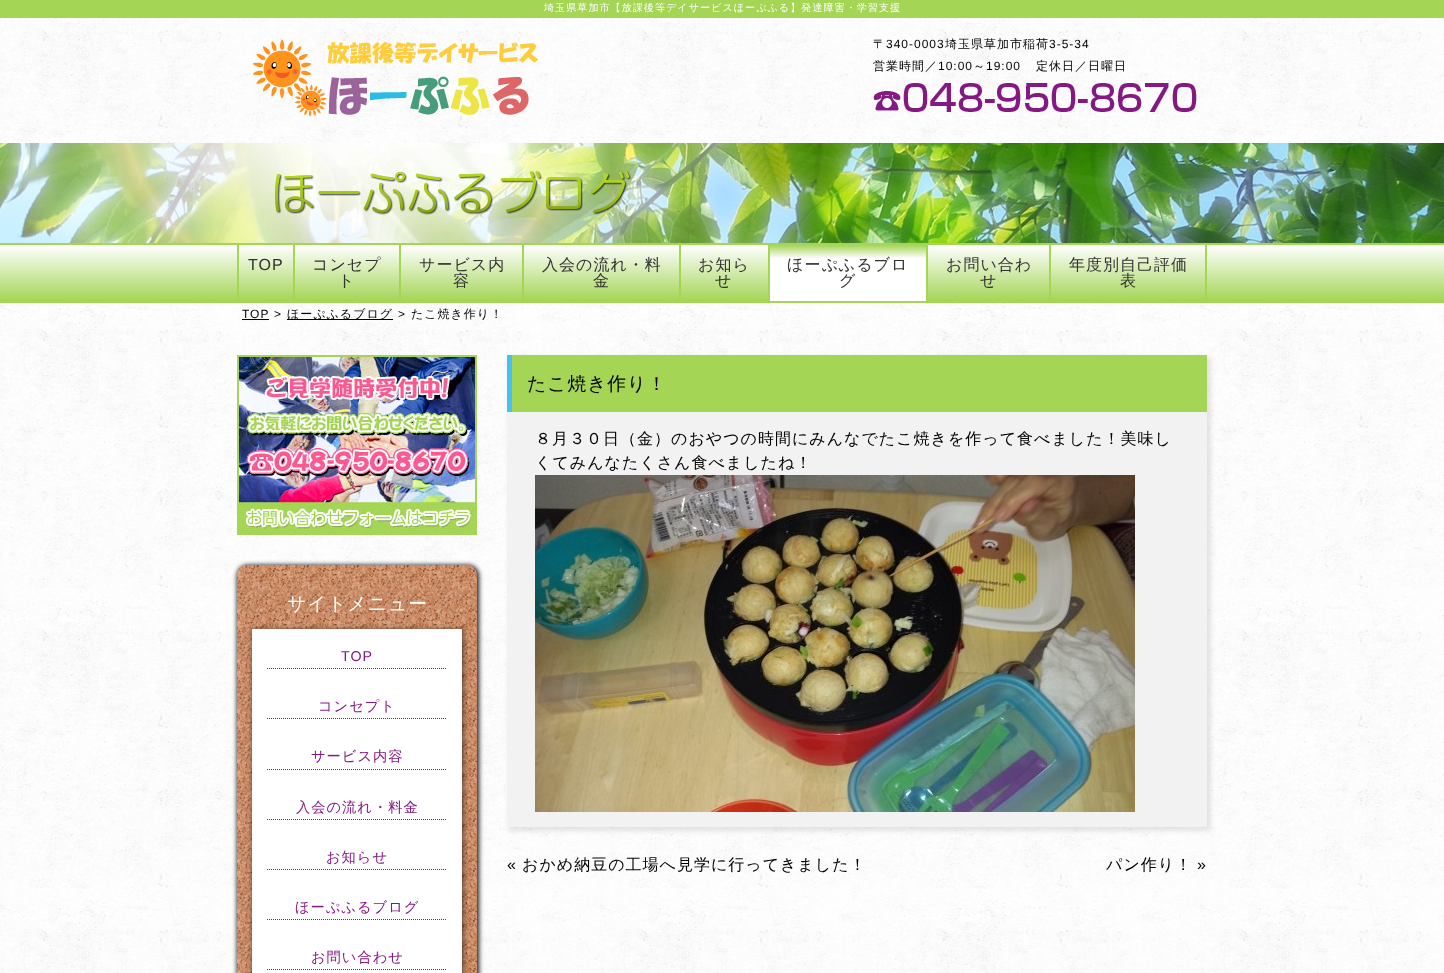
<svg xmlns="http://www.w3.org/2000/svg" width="1444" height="973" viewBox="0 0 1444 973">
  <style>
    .t1 { font: 500 10.1px WenQuanYi Zen Hei; letter-spacing: 1px; fill: #fff; }
    .t2 { font: 500 12px WenQuanYi Zen Hei; letter-spacing: 1px; fill: #000; }
    .t3 { font: 12px Liberation Sans; letter-spacing: 1px; fill: #000; }
    .t4 { font: 16px Liberation Sans; letter-spacing: 1px; fill: #323232; }
    .t5 { font: 500 16px WenQuanYi Zen Hei; letter-spacing: 1px; fill: #323232; }
    .t6 { font: 500 18.75px WenQuanYi Zen Hei; letter-spacing: 1px; fill: #fff; }
    .t7 { font: 14.25px Liberation Sans; letter-spacing: 1px; fill: #841983; }
    .t8 { font: 500 14.25px WenQuanYi Zen Hei; letter-spacing: 1px; fill: #841983; }
    .t9 { font: 500 18.75px WenQuanYi Zen Hei; letter-spacing: 1px; fill: #000; }
    .t10 { font: 500 16px WenQuanYi Zen Hei; letter-spacing: 1px; fill: #000; }
    .t11 { font: 16px Liberation Sans; letter-spacing: 1px; fill: #000; }
  </style>
  <defs>
    <linearGradient id="g1" gradientUnits="userSpaceOnUse" x1="722" y1="245" x2="722" y2="301"><stop offset="0" stop-color="#fff"/><stop offset="1" stop-color="#a4d555"/></linearGradient>
    <linearGradient id="g2" gradientUnits="userSpaceOnUse" x1="848" y1="245" x2="848" y2="301"><stop offset="0" stop-color="#a4d555"/><stop offset="0.24" stop-color="#fff"/></linearGradient>
  </defs>
  <rect width="100%" height="100%" fill="#fff"/>
  <image x="0" y="18" width="1444" height="955" href="images/1.png"/>
  <rect x="0" y="0" width="1444" height="18" fill="#a4d555"/>
  <text x="544" y="11" class="t1">埼玉県草加市【放課後等デイサービスほーぷふる】発達障害・学習支援</text>
  <image x="253" y="39" width="285" height="78" href="images/2.png"/>
  <text x="873" y="48" class="t2">〒</text>
  <text x="886" y="48" class="t3">340-0003</text>
  <text x="945" y="48" class="t2">埼玉県草加市稲荷</text>
  <text x="1049" y="48" class="t3">3-5-34</text>
  <text x="873" y="70" class="t2">営業時間／</text>
  <text x="938" y="70" class="t3">10:00</text>
  <text x="973" y="70" class="t2">～</text>
  <text x="986" y="70" class="t3">19:00</text>
  <text x="1036" y="70" class="t2">定休日／日曜日</text>
  <image x="873" y="83" width="324" height="29" href="images/3.png"/>
  <image x="0" y="143" width="1444" height="100" href="images/4.png"/>
  <rect x="0" y="243" width="1444" height="60" fill="#a4d555"/>
  <rect x="0" y="245" width="1444" height="55" fill="url(#g1)"/>
  <rect x="293" y="245" width="2" height="56" fill="#a4d555"/>
  <rect x="237" y="245" width="2" height="56" fill="#a4d555"/>
  <text x="248" y="270" class="t4">TOP</text>
  <rect x="399" y="245" width="2" height="56" fill="#a4d555"/>
  <text x="312" y="270" class="t5">コンセプ</text>
  <text x="338" y="286" class="t5">ト</text>
  <rect x="522" y="245" width="2" height="56" fill="#a4d555"/>
  <text x="419" y="270" class="t5">サービス内</text>
  <text x="453" y="286" class="t5">容</text>
  <rect x="679" y="245" width="2" height="56" fill="#a4d555"/>
  <text x="542" y="270" class="t5">入会の流れ・料</text>
  <text x="593" y="286" class="t5">金</text>
  <rect x="768" y="245" width="2" height="56" fill="#a4d555"/>
  <text x="698" y="270" class="t5">お知ら</text>
  <text x="715" y="286" class="t5">せ</text>
  <rect x="926" y="245" width="2" height="56" fill="#a4d555"/>
  <rect x="770" y="245" width="156" height="56" fill="url(#g2)"/>
  <text x="787" y="270" class="t5">ほーぷふるブロ</text>
  <text x="839" y="286" class="t5">グ</text>
  <rect x="1049" y="245" width="2" height="56" fill="#a4d555"/>
  <text x="946" y="270" class="t5">お問い合わ</text>
  <text x="980" y="286" class="t5">せ</text>
  <rect x="1205" y="245" width="2" height="56" fill="#a4d555"/>
  <text x="1069" y="270" class="t5">年度別自己評価</text>
  <text x="1120" y="286" class="t5">表</text>
  <text x="242" y="318" class="t3">TOP</text>
  <rect x="242" y="319" width="27" height="1" fill="#000"/>
  <text x="274" y="318" class="t3">&gt;</text>
  <rect x="287" y="319" width="106" height="1" fill="#000"/>
  <text x="287" y="318" class="t2">ほーぷふるブログ</text>
  <text x="398" y="318" class="t3">&gt;</text>
  <text x="411" y="318" class="t2">たこ焼き作り！</text>
  <image x="237" y="355" width="240" height="180" href="images/5.png"/>
  <rect x="237" y="565" width="242" height="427" rx="11" fill="#000000e6" filter="blur(2.5px)"/>
  <image x="237" y="565" width="240" height="408" href="images/6.png"/>
  <text x="287" y="610" class="t6">サイトメニュー</text>
  <rect x="252" y="629" width="212" height="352" fill="#00000080" filter="blur(2.5px)"/>
  <rect x="252" y="629" width="210" height="344" fill="#fff"/>
  <path d="M267 668.5H447" fill="none" stroke="#841983" stroke-dasharray="1 1"/>
  <text x="341" y="661" class="t7">TOP</text>
  <path d="M267 718.5H447" fill="none" stroke="#841983" stroke-dasharray="1 1"/>
  <text x="318" y="711" class="t8">コンセプト</text>
  <path d="M267 769.5H447" fill="none" stroke="#841983" stroke-dasharray="1 1"/>
  <text x="311" y="761" class="t8">サービス内容</text>
  <path d="M267 819.5H447" fill="none" stroke="#841983" stroke-dasharray="1 1"/>
  <text x="296" y="812" class="t8">入会の流れ・料金</text>
  <path d="M267 869.5H447" fill="none" stroke="#841983" stroke-dasharray="1 1"/>
  <text x="326" y="862" class="t8">お知らせ</text>
  <path d="M267 919.5H447" fill="none" stroke="#841983" stroke-dasharray="1 1"/>
  <text x="295" y="912" class="t8">ほーぷふるブログ</text>
  <path d="M267 969.5H447" fill="none" stroke="#841983" stroke-dasharray="1 1"/>
  <text x="311" y="962" class="t8">お問い合わせ</text>
  <rect x="509" y="357" width="702" height="474" fill="#0000001a" filter="blur(2.5px)"/>
  <rect x="512" y="355" width="695" height="57" fill="#a4d555"/>
  <rect x="507" y="355" width="5" height="57" fill="#43c0f6"/>
  <text x="527" y="390" class="t9">たこ焼き作り！</text>
  <rect x="507" y="412" width="700" height="415" fill="#f2f2f2"/>
  <text x="535" y="444" class="t10">８月３０日（金）のおやつの時間にみんなでたこ焼きを作って食べました！美味し</text>
  <text x="535" y="468" class="t10">くてみんなたくさん食べましたね！</text>
  <image x="535" y="475" width="600" height="337" href="images/7.png"/>
  <text x="507" y="870" class="t11">«</text>
  <text x="522" y="870" class="t10">おかめ納豆の工場へ見学に行ってきました！</text>
  <text x="1106" y="870" class="t10">パン作り！</text>
  <text x="1197" y="870" class="t11">»</text>
</svg>
